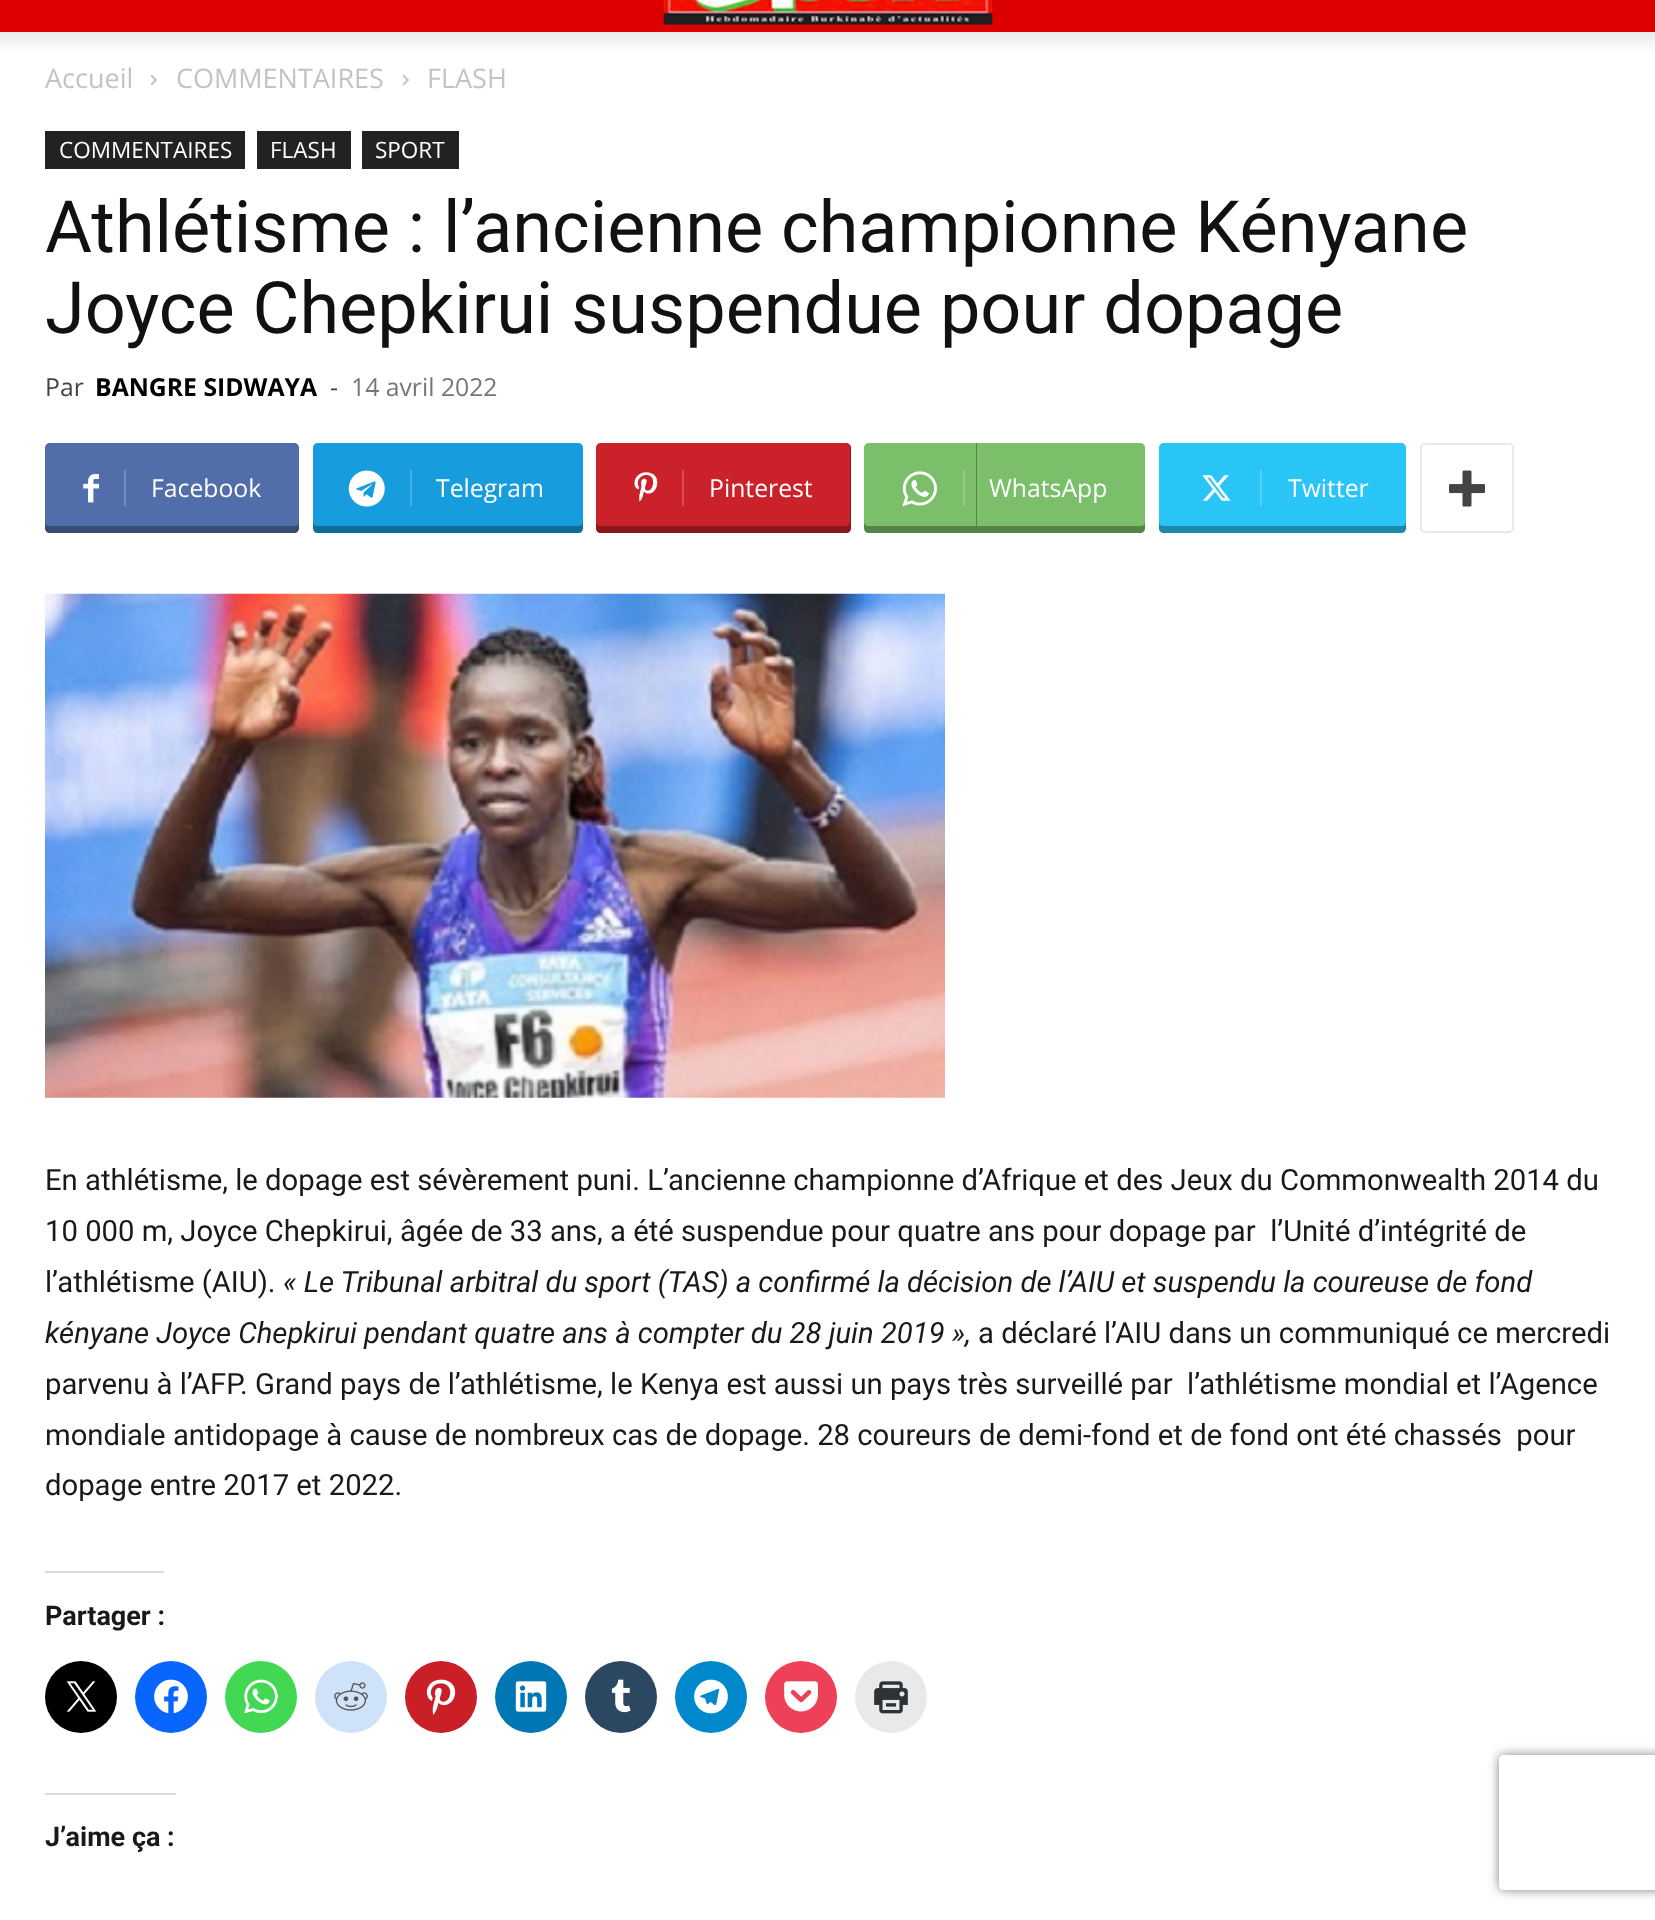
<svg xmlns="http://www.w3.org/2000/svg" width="1655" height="1920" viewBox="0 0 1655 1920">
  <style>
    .t1 { font: 27px Open Sans; fill: #c3c3c3; }
    .t2 { font: 22.5px Open Sans; fill: #fff; }
    .t3 { font: 72px Roboto; fill: #111; }
    .t4 { font: 24.75px Open Sans; fill: #444; }
    .t5 { font: bold 24.75px Open Sans; fill: #000; }
    .t6 { font: 24.75px Open Sans; fill: #767676; }
    .t7 { font: 24.75px Open Sans; fill: #fff; }
    .t8 { font: 29.25px Roboto; fill: #191919; }
    .t9 { font: italic 29.25px Roboto; fill: #191919; }
    .t10 { font: bold 27px Roboto; fill: #191919; }
  </style>
  <defs>
    <clipPath id="clip1"><path d="M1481 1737H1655V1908H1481ZM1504 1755H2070C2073 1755 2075 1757 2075 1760V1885C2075 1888 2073 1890 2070 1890H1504C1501 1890 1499 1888 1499 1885V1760C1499 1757 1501 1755 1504 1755Z" clip-rule="evenodd"/></clipPath>
  </defs>
  <rect width="100%" height="100%" fill="#fff"/>
  <rect x="0" y="0" width="1655" height="32" fill="#d00"/>
  <image x="663" y="0" width="330" height="25" href="images/1.png"/>
  <image x="0" y="32" width="1655" height="19" href="images/2.png"/>
  <text x="45" y="88" class="t1">Accueil</text>
  <image x="150" y="74" width="7" height="12" href="images/3.png"/>
  <text x="176" y="88" class="t1">COMMENTAIRES</text>
  <image x="402" y="74" width="7" height="12" href="images/3.png"/>
  <text x="427" y="88" class="t1">FLASH</text>
  <rect x="45" y="131" width="200" height="38" fill="#222"/>
  <text x="59" y="158" class="t2">COMMENTAIRES</text>
  <rect x="257" y="131" width="94" height="38" fill="#222"/>
  <text x="270" y="158" class="t2">FLASH</text>
  <rect x="362" y="131" width="97" height="38" fill="#222"/>
  <text x="375" y="158" class="t2">SPORT</text>
  <text x="45" y="252" class="t3">Athlétisme : l’ancienne championne Kényane</text>
  <text x="45" y="333" class="t3">Joyce Chepkirui suspendue pour dopage</text>
  <text x="45" y="396" class="t4">Par</text>
  <text x="95" y="396" class="t5">BANGRE SIDWAYA</text>
  <text x="330" y="396" class="t4">-</text>
  <text x="351" y="396" class="t6">14 avril 2022</text>
  <path d="M124 443H294C297 443 299 445 299 448V528C299 531 297 533 294 533H124Z" fill="#516eab"/>
  <path d="M124 526V533H294C297 533 299 531 299 528V522C299 524 297 526 295 526Z" fill="#0000004f"/>
  <path d="M50 443H137V533H50C47 533 45 531 45 528V448C45 445 47 443 50 443Z" fill="#516eab"/>
  <path d="M45 522V528C45 531 47 533 50 533H137V526H50C47 526 45 524 45 522Z" fill="#0000004f"/>
  <image x="83" y="474" width="16" height="29" href="images/4.png"/>
  <rect x="124" y="470" width="2" height="36" fill="#748bbc"/>
  <text x="151" y="497" class="t7">Facebook</text>
  <path d="M410 443H578C581 443 583 445 583 448V528C583 531 581 533 578 533H410Z" fill="#179cde"/>
  <path d="M410 526V533H578C581 533 583 531 583 528V522L582 525L578 526Z" fill="#0000004f"/>
  <path d="M318 443H423V533H318C315 533 313 531 313 528V448C313 445 315 443 318 443Z" fill="#179cde"/>
  <path d="M313 522V528C313 531 315 533 318 533H423V526H317C315 526 313 524 313 522Z" fill="#0000004f"/>
  <image x="348" y="470" width="37" height="37" href="images/5.png"/>
  <rect x="410" y="470" width="2" height="36" fill="#45b0e5"/>
  <text x="436" y="497" class="t7">Telegram</text>
  <path d="M682 443H846C849 443 851 445 851 448V528C851 531 849 533 846 533H682Z" fill="#ca212a"/>
  <path d="M682 526V533H846C849 533 851 531 851 528V448C851 447 851 446 850 445V522C850 524 848 526 846 526Z" fill="#0000004f"/>
  <path d="M601 443H695V533H601C598 533 596 531 596 528V448C596 445 598 443 601 443Z" fill="#ca212a"/>
  <path d="M596 522V528C596 531 598 533 601 533H695V526H601C598 526 596 524 596 522Z" fill="#0000004f"/>
  <image x="634" y="472" width="24" height="30" href="images/6.png"/>
  <rect x="682" y="470" width="2" height="36" fill="#d54d55"/>
  <text x="709" y="497" class="t7">Pinterest</text>
  <path d="M963 443H1140C1143 443 1145 445 1145 448V528C1145 531 1143 533 1140 533H963Z" fill="#7bbf6a"/>
  <path d="M963 526V533H1140C1143 533 1145 531 1145 528V522C1145 524 1143 526 1141 526Z" fill="#0000004f"/>
  <path d="M869 443H977V533H869C866 533 864 531 864 528V448C864 445 866 443 869 443Z" fill="#7bbf6a"/>
  <path d="M864 522V528C864 531 866 533 869 533H977V443H976V526H868C866 526 864 524 864 522Z" fill="#0000004f"/>
  <image x="902" y="471" width="35" height="36" href="images/7.png"/>
  <rect x="963" y="470" width="2" height="36" fill="#95cc88"/>
  <text x="989" y="497" class="t7">WhatsApp</text>
  <path d="M1260 443H1401C1404 443 1406 445 1406 448V528C1406 531 1404 533 1401 533H1260Z" fill="#29c5f6"/>
  <path d="M1260 526V533H1401C1404 533 1406 531 1406 528V522C1406 524 1404 526 1402 526Z" fill="#0000004f"/>
  <path d="M1164 443H1274V533H1164C1161 533 1159 531 1159 528V448C1159 445 1161 443 1164 443Z" fill="#29c5f6"/>
  <path d="M1159 522V528C1159 531 1161 533 1164 533H1274V526H1163C1161 526 1159 524 1159 522Z" fill="#0000004f"/>
  <image x="1202" y="475" width="29" height="26" href="images/8.png"/>
  <rect x="1260" y="470" width="2" height="36" fill="#54d1f8"/>
  <text x="1288" y="497" class="t7">Twitter</text>
  <rect x="1421" y="444" width="92" height="88" rx="4" fill="none" stroke="#e9e9e9" stroke-width="2"/>
  <image x="1449" y="470" width="36" height="37" href="images/9.png"/>
  <image x="45" y="593" width="900" height="505" href="images/10.png"/>
  <text x="45" y="1190" class="t8">En athlétisme, le dopage est sévèrement puni. L’ancienne championne d’Afrique et des Jeux du Commonwealth 2014 du</text>
  <text x="45" y="1241" class="t8" xml:space="preserve">10 000 m, Joyce Chepkirui, âgée de 33 ans, a été suspendue pour quatre ans pour dopage par  l’Unité d’intégrité de</text>
  <text x="45" y="1292" class="t8">l’athlétisme (AIU).</text>
  <text x="283" y="1292" class="t9">« Le Tribunal arbitral du sport (TAS) a confirmé la décision de l’AIU et suspendu la coureuse de fond</text>
  <text x="45" y="1343" class="t9">kényane Joyce Chepkirui pendant quatre ans à compter du 28 juin 2019 »,</text>
  <text x="978" y="1343" class="t8">a déclaré l’AIU dans un communiqué ce mercredi</text>
  <text x="45" y="1394" class="t8" xml:space="preserve">parvenu à l’AFP. Grand pays de l’athlétisme, le Kenya est aussi un pays très surveillé par  l’athlétisme mondial et l’Agence</text>
  <text x="45" y="1445" class="t8" xml:space="preserve">mondiale antidopage à cause de nombreux cas de dopage. 28 coureurs de demi-fond et de fond ont été chassés  pour</text>
  <text x="45" y="1495" class="t8">dopage entre 2017 et 2022.</text>
  <rect x="45" y="1571" width="119" height="2" fill="#dcdcde"/>
  <text x="45" y="1625" class="t10">Partager :</text>
  <circle cx="81" cy="1697" r="36" fill="#000"/>
  <image x="66" y="1681" width="31" height="31" href="images/11.png"/>
  <circle cx="171" cy="1697" r="36" fill="#0866ff"/>
  <image x="154" y="1679" width="34" height="35" href="images/12.png"/>
  <circle cx="261" cy="1697" r="36" fill="#43d854"/>
  <image x="244" y="1679" width="34" height="35" href="images/13.png"/>
  <circle cx="351" cy="1697" r="36" fill="#cee3f8"/>
  <image x="334" y="1682" width="34" height="29" href="images/14.png"/>
  <circle cx="441" cy="1697" r="36" fill="#ca1f27"/>
  <image x="426" y="1679" width="30" height="36" href="images/15.png"/>
  <circle cx="531" cy="1697" r="36" fill="#0077b5"/>
  <image x="515" y="1681" width="32" height="31" href="images/16.png"/>
  <circle cx="621" cy="1697" r="36" fill="#2c4762"/>
  <image x="611" y="1679" width="20" height="34" href="images/17.png"/>
  <circle cx="711" cy="1697" r="36" fill="#08c"/>
  <image x="694" y="1679" width="34" height="35" href="images/18.png"/>
  <circle cx="801" cy="1697" r="36" fill="#ee4056"/>
  <image x="784" y="1681" width="34" height="31" href="images/19.png"/>
  <circle cx="891" cy="1697" r="36" fill="#e9e9e9"/>
  <image x="874" y="1681" width="34" height="33" href="images/20.png"/>
  <rect x="45" y="1793" width="131" height="2" fill="#dcdcde"/>
  <text x="45" y="1846" class="t10">J’aime ça :</text>
  <g clip-path="url(#clip1)">
    <rect x="1499" y="1755" width="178" height="135" rx="5" fill="#808080" filter="blur(5.5px)"/>
  </g>
</svg>
